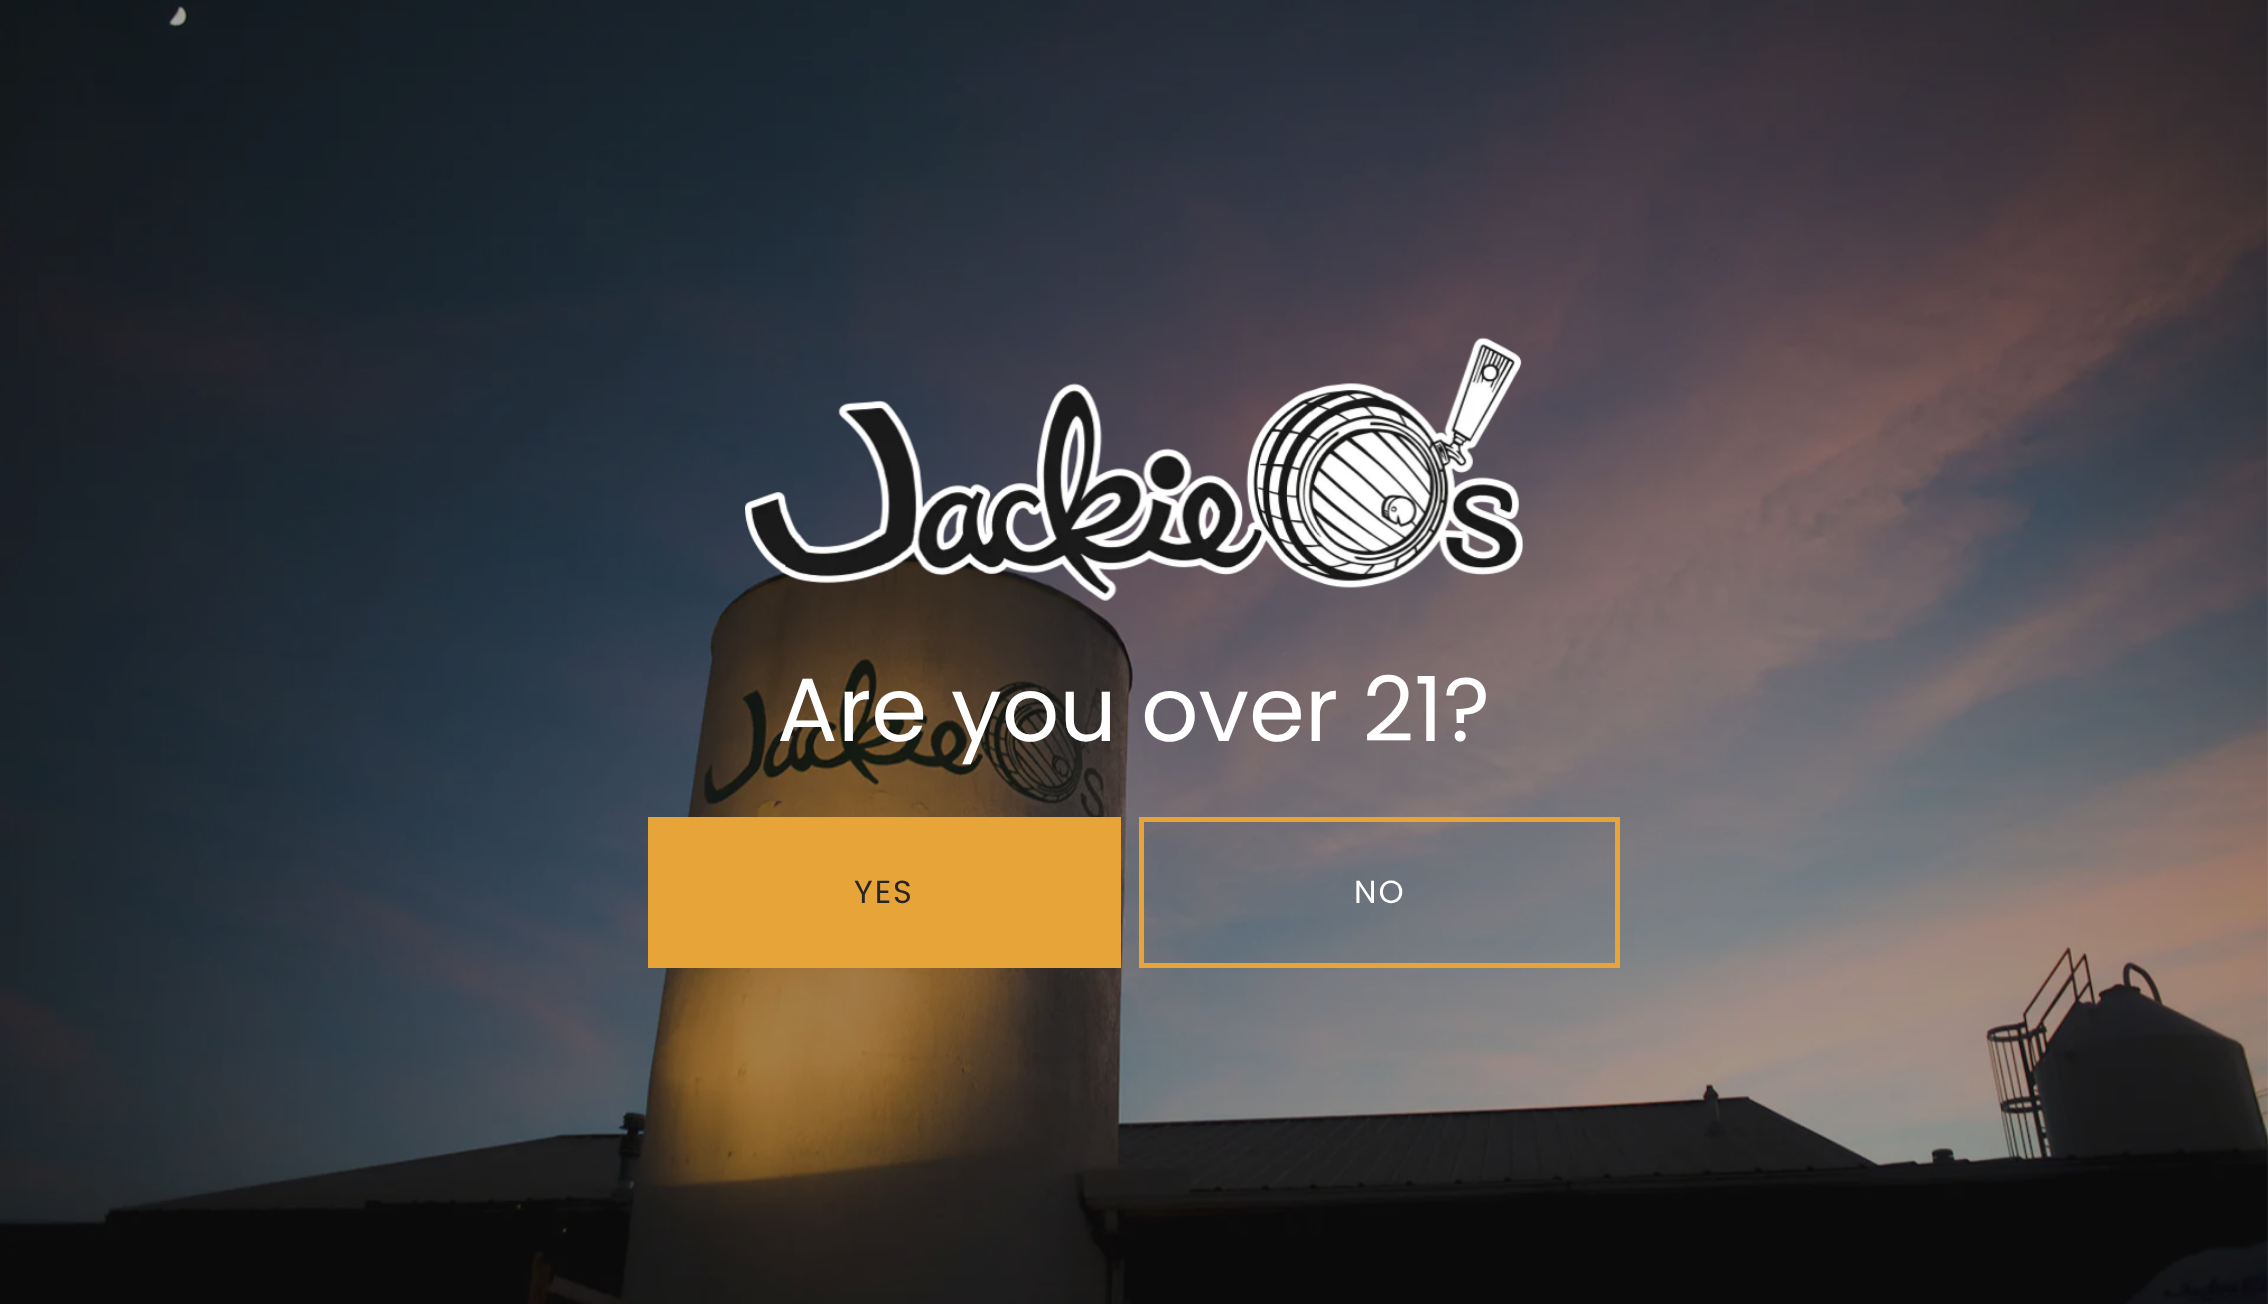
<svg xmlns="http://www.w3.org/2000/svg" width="2268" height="1304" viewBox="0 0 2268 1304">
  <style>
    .t1 { font: 90px Poppins; fill: #fff; }
    .t2 { font: 32px Poppins; letter-spacing: 2px; fill: #262626; }
    .t3 { font: 32px Poppins; letter-spacing: 2px; fill: #fff; }
  </style>
  <rect width="100%" height="100%" fill="#fff"/>
  <image x="0" y="0" width="2268" height="1304" href="images/1.png"/>
  <image x="745" y="337" width="778" height="264" href="images/2.png"/>
  <text x="777" y="741" class="t1">Are you over 21?</text>
  <rect x="648" y="817" width="473" height="151" fill="#e6a439"/>
  <text x="854" y="903" class="t2">YES</text>
  <rect x="1141.5" y="819.5" width="476" height="146" fill="none" stroke="#e6a439" stroke-width="5"/>
  <text x="1354" y="903" class="t3">NO</text>
</svg>
